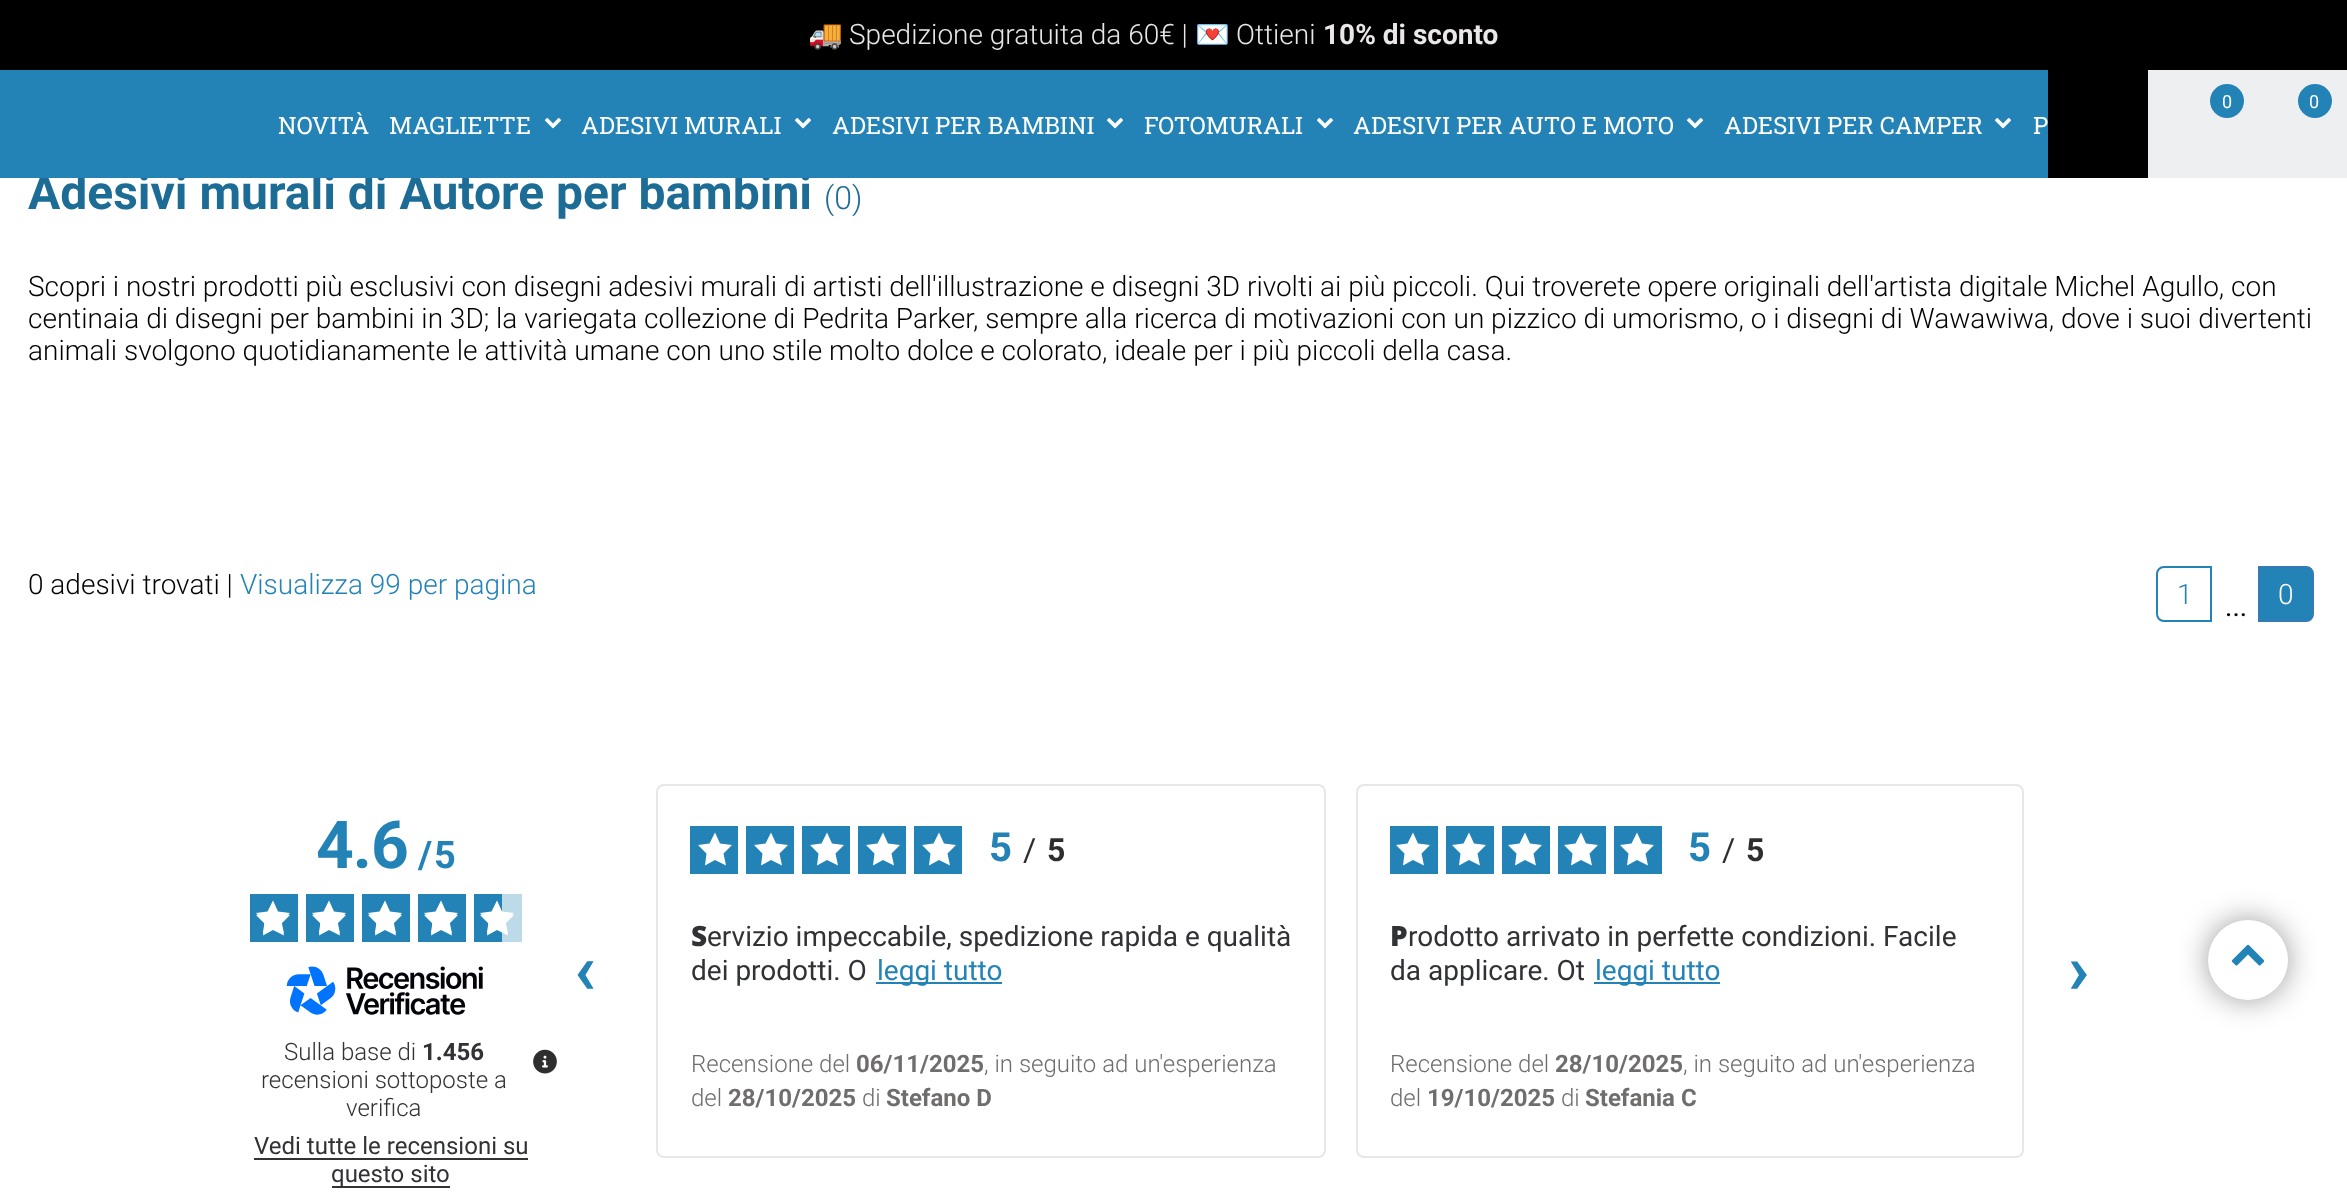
<svg xmlns="http://www.w3.org/2000/svg" width="2347" height="1199" viewBox="0 0 2347 1199">
  <style>
    .t1 { font: 28px Noto Color Emoji; fill: #ebe7e8; }
    .t2 { font: 300 28px Roboto; fill: #ebe7e8; }
    .t3 { font: bold 28px Roboto; fill: #ebe7e8; }
    .t4 { font: 18px Roboto; fill: #fff; }
    .t5 { font: bold 48px Roboto; fill: #1d6c95; }
    .t6 { font: 24px Roboto Slab; fill: #fff; }
    .t7 { font: 300 32px Roboto; fill: #1d6c95; }
    .t8 { font: 300 28px Roboto; fill: #000; }
    .t9 { font: 300 28px Roboto; fill: #2383b6; }
    .t10 { font: 300 28px Roboto; fill: #fff; }
    .t11 { font: 28px Roboto; fill: #000; }
    .t12 { font: bold 66px Roboto; letter-spacing: -1px; fill: #2383b6; }
    .t13 { font: bold 38px Roboto; letter-spacing: -1px; fill: #2383b6; }
    .t14 { font: 300 24px Roboto; fill: #313235; }
    .t15 { font: bold 24px Roboto; fill: #313235; }
    .t16 { font: 24px Roboto; fill: #313235; }
    .t17 { font: bold 70px Roboto; fill: #2383b6; }
    .t18 { font: bold 40px Roboto; letter-spacing: 2px; fill: #2383b6; }
    .t19 { font: 32px Roboto; letter-spacing: 2px; fill: #2f2e2e; }
    .t20 { font: bold 32px Roboto; letter-spacing: 2px; fill: #2f2e2e; }
    .t21 { font: 900 28px Noto Sans; fill: #313235; }
    .t22 { font: 28px Roboto; fill: #313235; }
    .t23 { font: 28px Roboto; fill: #2383b6; }
    .t24 { font: 300 24px Roboto; fill: #706d6d; }
    .t25 { font: bold 24px Roboto; fill: #706d6d; }
  </style>
  <rect width="100%" height="100%" fill="#fff"/>
  <rect x="0" y="0" width="2347" height="70" fill="#000"/>
  <text x="808" y="44" class="t1">🚚</text>
  <text x="849" y="44" class="t2">Spedizione gratuita da 60€ |</text>
  <text x="1195" y="44" class="t1">💌</text>
  <text x="1236" y="44" class="t2">Ottieni</text>
  <text x="1323" y="44" class="t3">10% di sconto</text>
  <rect x="2048" y="70" width="100" height="108" fill="#000"/>
  <rect x="2148" y="70" width="199" height="108" fill="#eeeff1"/>
  <circle cx="2227" cy="101" r="17" fill="#2383b6"/>
  <text x="2222" y="108" class="t4">0</text>
  <circle cx="2315" cy="101" r="17" fill="#2383b6"/>
  <text x="2309" y="108" class="t4">0</text>
  <text x="28" y="209" class="t5">Adesivi murali di Autore per bambini</text>
  <rect x="0" y="70" width="2048" height="108" fill="#2383b6"/>
  <text x="278" y="134" class="t6">NOVITÀ</text>
  <text x="389" y="134" class="t6">MAGLIETTE</text>
  <image x="544" y="118" width="18" height="11" href="images/1.png"/>
  <text x="581" y="134" class="t6">ADESIVI MURALI</text>
  <image x="794" y="118" width="18" height="11" href="images/1.png"/>
  <text x="832" y="134" class="t6">ADESIVI PER BAMBINI</text>
  <image x="1106" y="118" width="18" height="11" href="images/1.png"/>
  <text x="1144" y="134" class="t6">FOTOMURALI</text>
  <image x="1316" y="118" width="18" height="11" href="images/1.png"/>
  <text x="1353" y="134" class="t6">ADESIVI PER AUTO E MOTO</text>
  <image x="1686" y="118" width="18" height="11" href="images/1.png"/>
  <text x="1724" y="134" class="t6">ADESIVI PER CAMPER</text>
  <image x="1994" y="118" width="18" height="11" href="images/1.png"/>
  <text x="2033" y="134" class="t6">P</text>
  <text x="824" y="209" class="t7">(0)</text>
  <text x="28" y="296" class="t8">Scopri i nostri prodotti più esclusivi con disegni adesivi murali di artisti dell'illustrazione e disegni 3D rivolti ai più piccoli. Qui troverete opere originali dell'artista digitale Michel Agullo, con</text>
  <text x="28" y="328" class="t8">centinaia di disegni per bambini in 3D; la variegata collezione di Pedrita Parker, sempre alla ricerca di motivazioni con un pizzico di umorismo, o i disegni di Wawawiwa, dove i suoi divertenti</text>
  <text x="28" y="360" class="t8">animali svolgono quotidianamente le attività umane con uno stile molto dolce e colorato, ideale per i più piccoli della casa.</text>
  <text x="28" y="594" class="t8">0 adesivi trovati |</text>
  <text x="240" y="594" class="t9">Visualizza 99 per pagina</text>
  <path d="M2164 567H2211V621H2164C2160 621 2157 618 2157 614V574C2157 570 2160 567 2164 567Z" fill="none" stroke="#2383b6" stroke-width="2"/>
  <text x="2177" y="604" class="t9">1</text>
  <path d="M2259 567H2306C2310 567 2313 570 2313 574V614C2313 618 2310 621 2306 621H2259Z" fill="#2383b6" stroke="#337ab7" stroke-width="2"/>
  <text x="2278" y="604" class="t10">0</text>
  <text x="2225" y="616" class="t11">...</text>
  <text x="316" y="868" class="t12">4.6</text>
  <text x="418" y="868" class="t13">/</text>
  <text x="434" y="868" class="t13">5</text>
  <rect x="250" y="894" width="48" height="48" fill="#2383b6"/>
  <path d="M290 915L281.5 923.5L284 935.5L273 930L263 935.5L264.5 923.5L256 915L267.5 913.5L273 902.5L278 913.5Z" fill="#fff"/>
  <path d="M290 913L281.5 921.5L284 933.5L273 928L263 933.5L264.5 921.5L256 913L267.5 911.5L273 900.5L278 911.5Z" fill="#fff"/>
  <rect x="306" y="894" width="48" height="48" fill="#2383b6"/>
  <path d="M346 915L337.5 923.5L340 935.5L329 930L319 935.5L320.5 923.5L312 915L323.5 913.5L329 902.5L334 913.5Z" fill="#fff"/>
  <path d="M346 913L337.5 921.5L340 933.5L329 928L319 933.5L320.5 921.5L312 913L323.5 911.5L329 900.5L334 911.5Z" fill="#fff"/>
  <rect x="362" y="894" width="48" height="48" fill="#2383b6"/>
  <path d="M402 915L393.5 923.5L396 935.5L385 930L375 935.5L376.5 923.5L368 915L379.5 913.5L385 902.5L390 913.5Z" fill="#fff"/>
  <path d="M402 913L393.5 921.5L396 933.5L385 928L375 933.5L376.5 921.5L368 913L379.5 911.5L385 900.5L390 911.5Z" fill="#fff"/>
  <rect x="418" y="894" width="48" height="48" fill="#2383b6"/>
  <path d="M458 915L449.5 923.5L452 935.5L441 930L431 935.5L432.5 923.5L424 915L435.5 913.5L441 902.5L446 913.5Z" fill="#fff"/>
  <path d="M458 913L449.5 921.5L452 933.5L441 928L431 933.5L432.5 921.5L424 913L435.5 911.5L441 900.5L446 911.5Z" fill="#fff"/>
  <rect x="474" y="894" width="28" height="48" fill="#2383b6"/>
  <rect x="502" y="894" width="20" height="48" fill="#bddae9"/>
  <path d="M514 915L505.5 923.5L508 935.5L497 930L487 935.5L488.5 923.5L480 915L491.5 913.5L497 902.5L502 913.5Z" fill="#fff"/>
  <path d="M514 913L505.5 921.5L508 933.5L497 928L487 933.5L488.5 921.5L480 913L491.5 911.5L497 900.5L502 911.5Z" fill="#fff"/>
  <image x="286" y="966" width="197" height="49" href="images/2.png"/>
  <text x="284" y="1060" class="t14">Sulla base di</text>
  <text x="422" y="1060" class="t15">1.456</text>
  <text x="261" y="1088" class="t14">recensioni sottoposte a</text>
  <text x="346" y="1116" class="t14">verifica</text>
  <image x="533" y="1049" width="24" height="25" href="images/3.png"/>
  <text x="254" y="1154" class="t16">Vedi tutte le recensioni su</text>
  <rect x="254" y="1158" width="274" height="2" fill="#313235"/>
  <rect x="332" y="1186" width="118" height="2" fill="#313235"/>
  <text x="331" y="1182" class="t16">questo sito</text>
  <text x="574" y="993" class="t17">‹</text>
  <rect x="657" y="785" width="668" height="372" rx="7" fill="none" stroke="#e7e7e7" stroke-width="2"/>
  <rect x="690" y="826" width="48" height="48" fill="#2383b6"/>
  <path d="M732 845L723.5 853.5L726 865.5L715 860L705 865.5L706.5 853.5L698 845L709.5 843.5L715 832.5L720 843.5Z" fill="#fff"/>
  <rect x="746" y="826" width="48" height="48" fill="#2383b6"/>
  <path d="M788 845L779.5 853.5L782 865.5L771 860L761 865.5L762.5 853.5L754 845L765.5 843.5L771 832.5L776 843.5Z" fill="#fff"/>
  <rect x="802" y="826" width="48" height="48" fill="#2383b6"/>
  <path d="M844 845L835.5 853.5L838 865.5L827 860L817 865.5L818.5 853.5L810 845L821.5 843.5L827 832.5L832 843.5Z" fill="#fff"/>
  <rect x="858" y="826" width="48" height="48" fill="#2383b6"/>
  <path d="M900 845L891.5 853.5L894 865.5L883 860L873 865.5L874.5 853.5L866 845L877.5 843.5L883 832.5L888 843.5Z" fill="#fff"/>
  <rect x="914" y="826" width="48" height="48" fill="#2383b6"/>
  <path d="M956 845L947.5 853.5L950 865.5L939 860L929 865.5L930.5 853.5L922 845L933.5 843.5L939 832.5L944 843.5Z" fill="#fff"/>
  <text x="989" y="861" class="t18">5</text>
  <text x="1023" y="861" class="t19">/</text>
  <text x="1047" y="861" class="t20">5</text>
  <text x="691" y="946" class="t21">S</text>
  <text x="707" y="946" class="t22">ervizio impeccabile, spedizione rapida e qualità</text>
  <text x="691" y="980" class="t22">dei prodotti. O</text>
  <rect x="876" y="982" width="126" height="2" fill="#2383b6"/>
  <text x="877" y="980" class="t23">leggi tutto</text>
  <text x="691" y="1072" class="t24">Recensione del</text>
  <text x="856" y="1072" class="t25">06/11/2025</text>
  <text x="984" y="1072" class="t24">, in seguito ad un'esperienza</text>
  <text x="691" y="1106" class="t24">del</text>
  <text x="728" y="1106" class="t25">28/10/2025</text>
  <text x="862" y="1106" class="t24">di</text>
  <text x="886" y="1106" class="t25">Stefano D</text>
  <rect x="1357" y="785" width="666" height="372" rx="7" fill="none" stroke="#e7e7e7" stroke-width="2"/>
  <rect x="1390" y="826" width="48" height="48" fill="#2383b6"/>
  <path d="M1430 845L1421.5 853.5L1424 865.5L1413 860L1403 865.5L1404.5 853.5L1396 845L1407.5 843.5L1413 832.5L1418 843.5Z" fill="#fff"/>
  <rect x="1446" y="826" width="48" height="48" fill="#2383b6"/>
  <path d="M1486 845L1477.5 853.5L1480 865.5L1469 860L1459 865.5L1460.5 853.5L1452 845L1463.5 843.5L1469 832.5L1474 843.5Z" fill="#fff"/>
  <rect x="1502" y="826" width="48" height="48" fill="#2383b6"/>
  <path d="M1542 845L1533.5 853.5L1536 865.5L1525 860L1515 865.5L1516.5 853.5L1508 845L1519.5 843.5L1525 832.5L1530 843.5Z" fill="#fff"/>
  <rect x="1558" y="826" width="48" height="48" fill="#2383b6"/>
  <path d="M1598 845L1589.5 853.5L1592 865.5L1581 860L1571 865.5L1572.5 853.5L1564 845L1575.5 843.5L1581 832.5L1586 843.5Z" fill="#fff"/>
  <rect x="1614" y="826" width="48" height="48" fill="#2383b6"/>
  <path d="M1654 845L1645.5 853.5L1648 865.5L1637 860L1627 865.5L1628.5 853.5L1620 845L1631.5 843.5L1637 832.5L1642 843.5Z" fill="#fff"/>
  <text x="1688" y="861" class="t18">5</text>
  <text x="1722" y="861" class="t19">/</text>
  <text x="1746" y="861" class="t20">5</text>
  <text x="1390" y="946" class="t21">P</text>
  <text x="1408" y="946" class="t22">rodotto arrivato in perfette condizioni. Facile</text>
  <text x="1390" y="980" class="t22">da applicare. Ot</text>
  <rect x="1594" y="982" width="126" height="2" fill="#2383b6"/>
  <text x="1595" y="980" class="t23">leggi tutto</text>
  <text x="1390" y="1072" class="t24">Recensione del</text>
  <text x="1555" y="1072" class="t25">28/10/2025</text>
  <text x="1683" y="1072" class="t24">, in seguito ad un'esperienza</text>
  <text x="1390" y="1106" class="t24">del</text>
  <text x="1427" y="1106" class="t25">19/10/2025</text>
  <text x="1561" y="1106" class="t24">di</text>
  <text x="1585" y="1106" class="t25">Stefania C</text>
  <text x="2068" y="993" class="t17">›</text>
  <rect x="2208" y="920" width="80" height="80" rx="40" fill="#00000066" filter="blur(15px)"/>
  <circle cx="2248" cy="960" r="40" fill="#fff"/>
  <image x="2231" y="944" width="34" height="22" href="images/4.png"/>
</svg>
